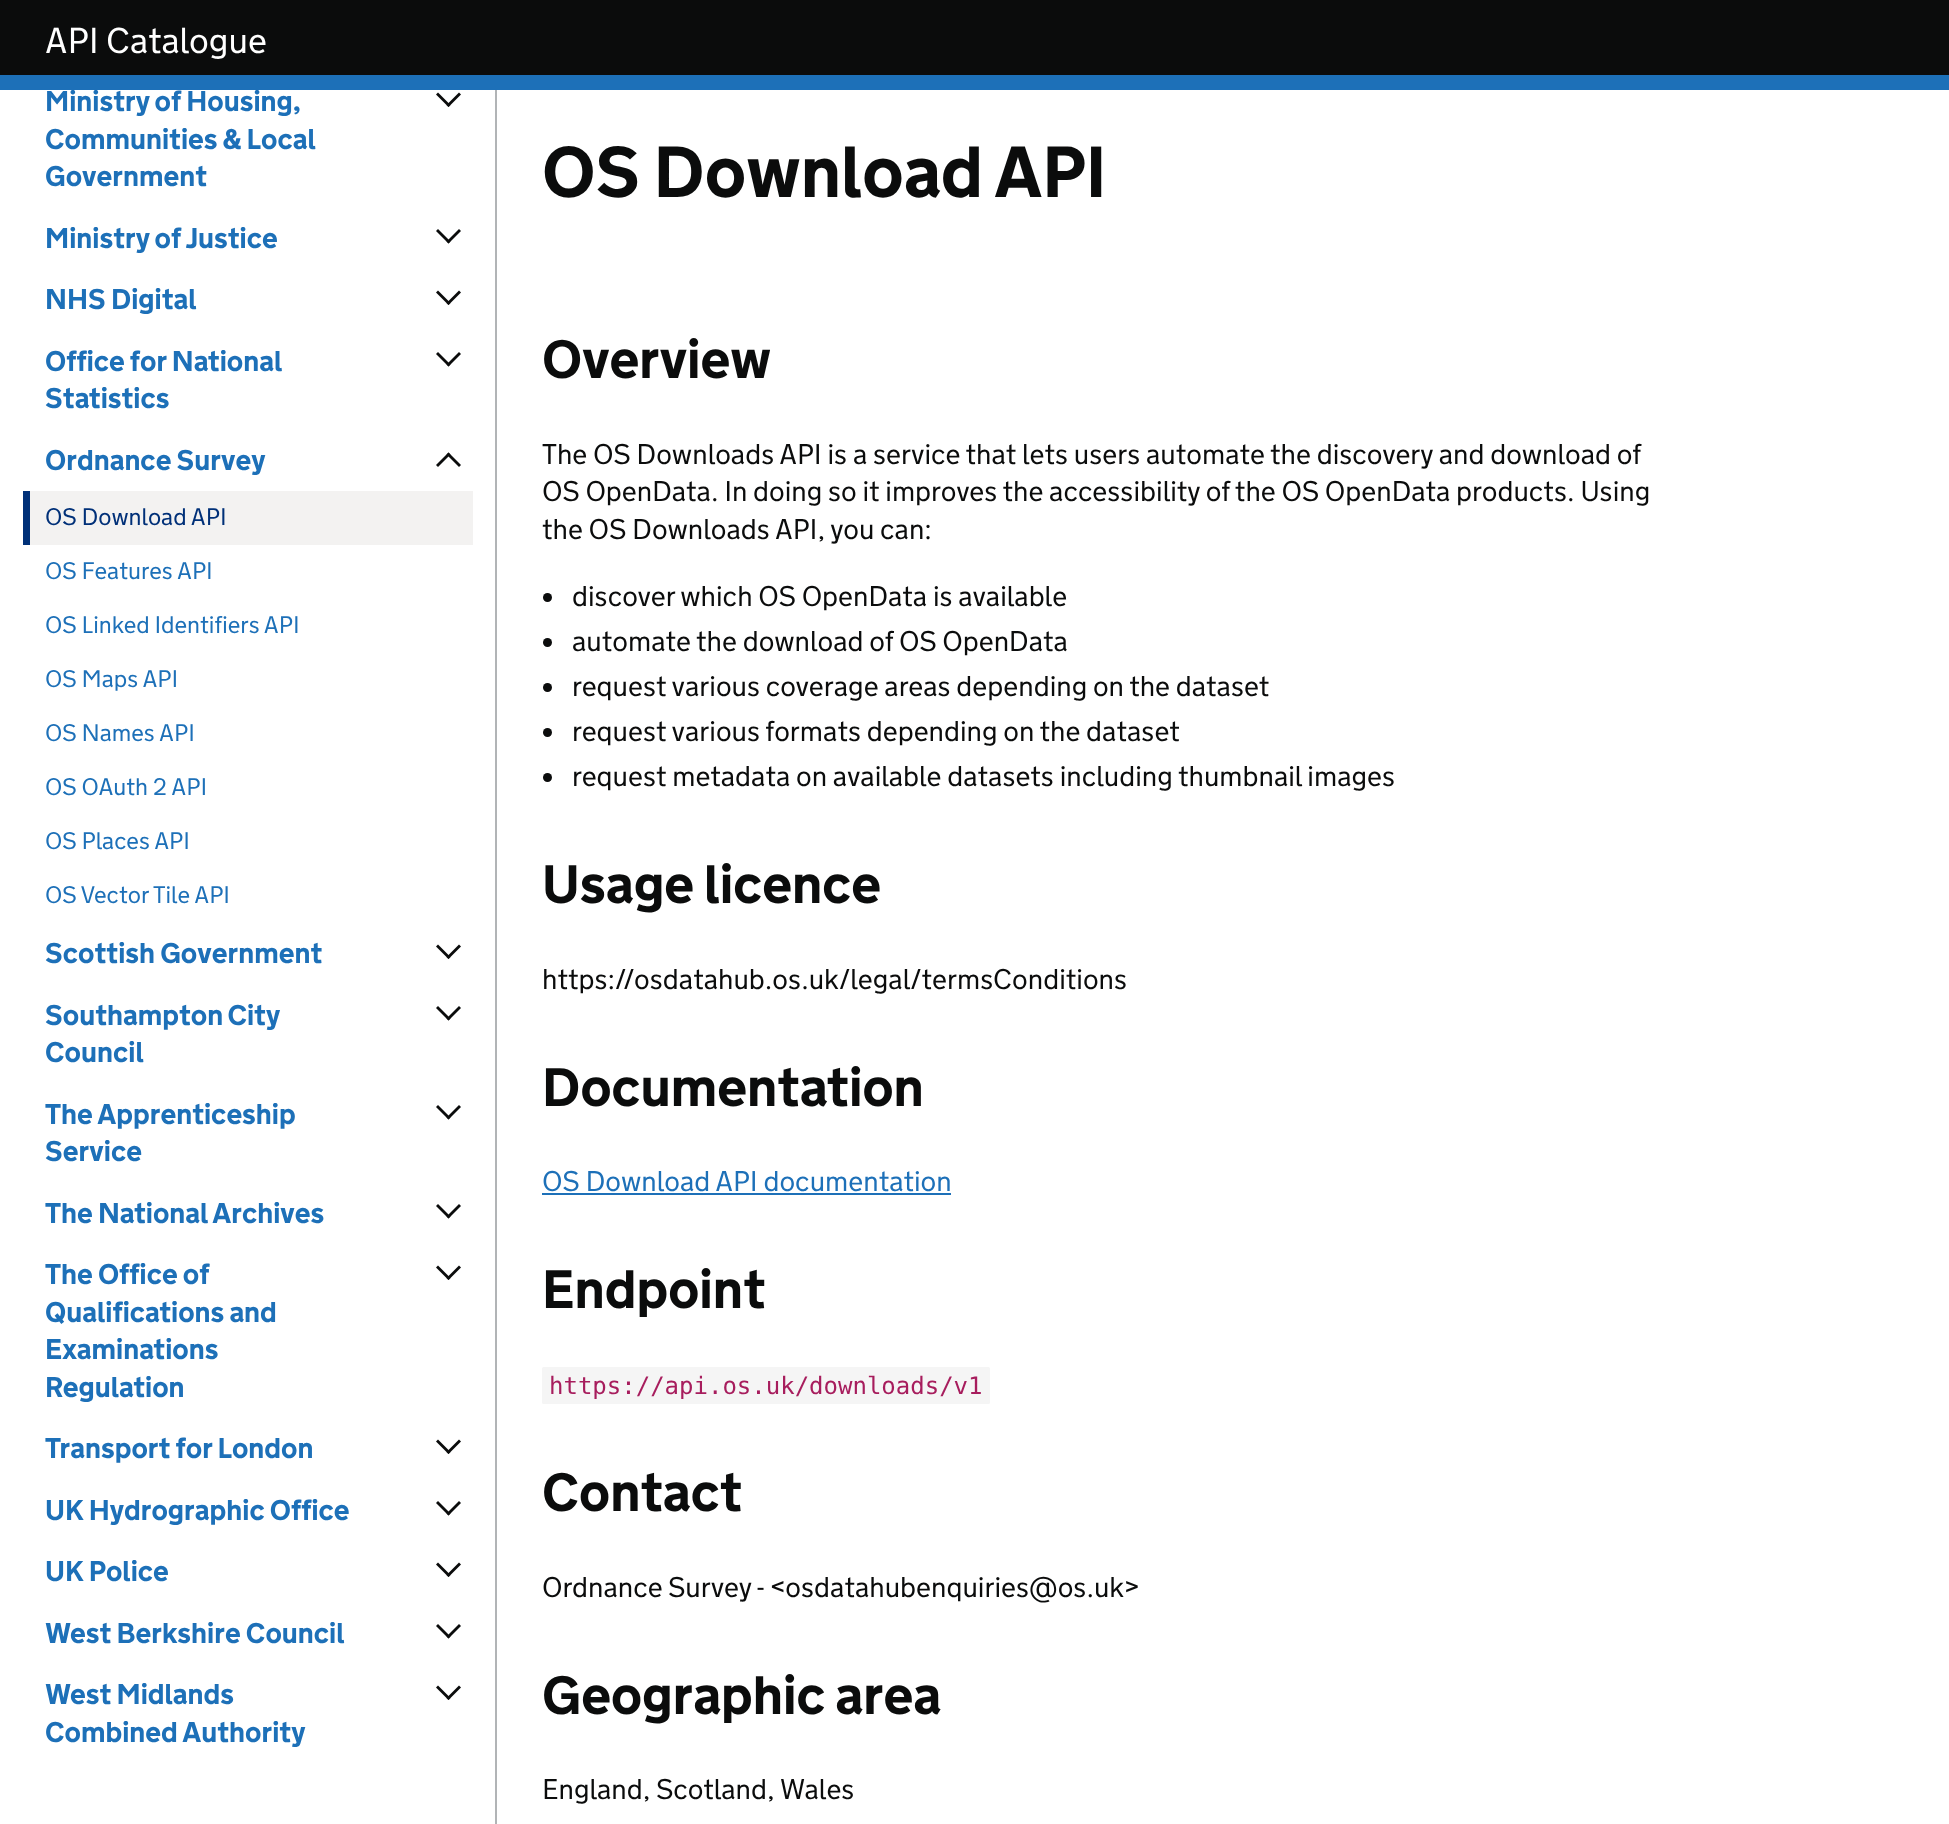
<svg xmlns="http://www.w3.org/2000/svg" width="1949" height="1824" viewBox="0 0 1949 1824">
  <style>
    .t1 { font: 300 36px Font; fill: #fff; }
    .t2 { font: bold 28.5px Font; fill: #1d70b8; }
    .t3 { font: 300 24px Font; fill: #003078; }
    .t4 { font: 300 24px Font; fill: #1d70b8; }
    .t5 { font: bold 72px Font; fill: #0b0c0c; }
    .t6 { font: bold 54px Font; fill: #0b0c0c; }
    .t7 { font: 300 28.5px Font; fill: #0b0c0c; }
    .t8 { font: 300 28.5px Font; fill: #1d70b8; }
    .t9 { font: 24px DejaVu Sans Mono; fill: #a71d5d; }
  </style>
  <rect width="100%" height="100%" fill="#fff"/>
  <rect x="0" y="0" width="1949" height="75" fill="#0b0c0c"/>
  <rect x="0" y="75" width="1949" height="15" fill="#1d70b8"/>
  <text x="45" y="53" class="t1">API Catalogue</text>
  <rect x="495" y="90" width="2" height="1734" fill="#b1b4b6"/>
  <text x="45" y="111" class="t2">Ministry of Housing,</text>
  <text x="45" y="149" class="t2">Communities &amp; Local</text>
  <text x="45" y="186" class="t2">Government</text>
  <path d="M461 94.5L448.5 107L446.5 105L459 92.5Z" fill="#0b0c0c"/>
  <path d="M450.5 105L448.5 107L436 94.5L438 92.5Z" fill="#0b0c0c"/>
  <text x="45" y="248" class="t2">Ministry of Justice</text>
  <path d="M461 231L448.5 243.5L446.5 241.5L459 229Z" fill="#0b0c0c"/>
  <path d="M450.5 241.5L448.5 243.5L436 231L438 229Z" fill="#0b0c0c"/>
  <text x="45" y="309" class="t2">NHS Digital</text>
  <path d="M461 292.5L448.5 305L446.5 303L459 290.5Z" fill="#0b0c0c"/>
  <path d="M450.5 303L448.5 305L436 292.5L438 290.5Z" fill="#0b0c0c"/>
  <text x="45" y="371" class="t2">Office for National</text>
  <text x="45" y="408" class="t2">Statistics</text>
  <path d="M461 354L448.5 366.5L446.5 364.5L459 352Z" fill="#0b0c0c"/>
  <path d="M450.5 364.5L448.5 366.5L436 354L438 352Z" fill="#0b0c0c"/>
  <text x="45" y="470" class="t2">Ordnance Survey</text>
  <path d="M436 465L448.5 452.5L450.5 454.5L438 467Z" fill="#0b0c0c"/>
  <path d="M446.5 454.5L448.5 452.5L461 465L459 467Z" fill="#0b0c0c"/>
  <rect x="30" y="491" width="443" height="54" fill="#f3f2f1"/>
  <rect x="23" y="491" width="7" height="54" fill="#003078"/>
  <text x="45" y="525" class="t3">OS Download API</text>
  <text x="45" y="579" class="t4">OS Features API</text>
  <text x="45" y="633" class="t4">OS Linked Identifiers API</text>
  <text x="45" y="687" class="t4">OS Maps API</text>
  <text x="45" y="741" class="t4">OS Names API</text>
  <text x="45" y="795" class="t4">OS OAuth 2 API</text>
  <text x="45" y="849" class="t4">OS Places API</text>
  <text x="45" y="903" class="t4">OS Vector Tile API</text>
  <text x="45" y="963" class="t2">Scottish Government</text>
  <path d="M461 946.5L448.5 959L446.5 957L459 944.5Z" fill="#0b0c0c"/>
  <path d="M450.5 957L448.5 959L436 946.5L438 944.5Z" fill="#0b0c0c"/>
  <text x="45" y="1025" word-spacing="-1" class="t2">Southampton City</text>
  <text x="45" y="1062" class="t2">Council</text>
  <path d="M461 1008L448.5 1020.5L446.5 1018.5L459 1006Z" fill="#0b0c0c"/>
  <path d="M450.5 1018.5L448.5 1020.5L436 1008L438 1006Z" fill="#0b0c0c"/>
  <text x="45" y="1124" class="t2">The Apprenticeship</text>
  <text x="45" y="1161" class="t2">Service</text>
  <path d="M461 1107L448.5 1119.5L446.5 1117.5L459 1105Z" fill="#0b0c0c"/>
  <path d="M450.5 1117.5L448.5 1119.5L436 1107L438 1105Z" fill="#0b0c0c"/>
  <text x="45" y="1223" class="t2">The National Archives</text>
  <path d="M461 1206L448.5 1218.5L446.5 1216.5L459 1204Z" fill="#0b0c0c"/>
  <path d="M450.5 1216.5L448.5 1218.5L436 1206L438 1204Z" fill="#0b0c0c"/>
  <text x="45" y="1284" class="t2">The Office of</text>
  <text x="45" y="1322" class="t2">Qualifications and</text>
  <text x="45" y="1359" class="t2">Examinations</text>
  <text x="45" y="1397" class="t2">Regulation</text>
  <path d="M461 1267.5L448.5 1280L446.5 1278L459 1265.5Z" fill="#0b0c0c"/>
  <path d="M450.5 1278L448.5 1280L436 1267.5L438 1265.5Z" fill="#0b0c0c"/>
  <text x="45" y="1458" class="t2">Transport for London</text>
  <path d="M461 1441.5L448.5 1454L446.5 1452L459 1439.5Z" fill="#0b0c0c"/>
  <path d="M450.5 1452L448.5 1454L436 1441.5L438 1439.5Z" fill="#0b0c0c"/>
  <text x="45" y="1520" class="t2">UK Hydrographic Office</text>
  <path d="M461 1503L448.5 1515.5L446.5 1513.5L459 1501Z" fill="#0b0c0c"/>
  <path d="M450.5 1513.5L448.5 1515.5L436 1503L438 1501Z" fill="#0b0c0c"/>
  <text x="45" y="1581" class="t2">UK Police</text>
  <path d="M461 1564.5L448.5 1577L446.5 1575L459 1562.5Z" fill="#0b0c0c"/>
  <path d="M450.5 1575L448.5 1577L436 1564.5L438 1562.5Z" fill="#0b0c0c"/>
  <text x="45" y="1643" class="t2">West Berkshire Council</text>
  <path d="M461 1626L448.5 1638.5L446.5 1636.5L459 1624Z" fill="#0b0c0c"/>
  <path d="M450.5 1636.5L448.5 1638.5L436 1626L438 1624Z" fill="#0b0c0c"/>
  <text x="45" y="1704" class="t2">West Midlands</text>
  <text x="45" y="1742" class="t2">Combined Authority</text>
  <path d="M461 1687.5L448.5 1700L446.5 1698L459 1685.5Z" fill="#0b0c0c"/>
  <path d="M450.5 1698L448.5 1700L436 1687.5L438 1685.5Z" fill="#0b0c0c"/>
  <text x="542" y="197" class="t5">OS Download API</text>
  <text x="542" y="378" class="t6">Overview</text>
  <text x="542" y="464" class="t7">The OS Downloads API is a service that lets users automate the discovery and download of</text>
  <text x="542" y="501" class="t7">OS OpenData. In doing so it improves the accessibility of the OS OpenData products. Using</text>
  <text x="542" y="539" class="t7">the OS Downloads API, you can:</text>
  <circle cx="547.5" cy="597.5" r="4.5" fill="#0b0c0c"/>
  <text x="572" y="606" class="t7">discover which OS OpenData is available</text>
  <circle cx="547.5" cy="642.5" r="4.5" fill="#0b0c0c"/>
  <text x="572" y="651" class="t7">automate the download of OS OpenData</text>
  <circle cx="547.5" cy="687.5" r="4.5" fill="#0b0c0c"/>
  <text x="572" y="696" class="t7">request various coverage areas depending on the dataset</text>
  <circle cx="547.5" cy="732.5" r="4.5" fill="#0b0c0c"/>
  <text x="572" y="741" class="t7">request various formats depending on the dataset</text>
  <circle cx="547.5" cy="777.5" r="4.5" fill="#0b0c0c"/>
  <text x="572" y="786" class="t7">request metadata on available datasets including thumbnail images</text>
  <text x="542" y="903" class="t6">Usage licence</text>
  <text x="542" y="989" class="t7">https://osdatahub.os.uk/legal/termsConditions</text>
  <text x="542" y="1106" class="t6">Documentation</text>
  <text x="542" y="1191" class="t8">OS Download API documentation</text>
  <rect x="542" y="1193" width="409" height="2" fill="#1d70b8"/>
  <text x="542" y="1308" class="t6">Endpoint</text>
  <rect x="542" y="1367" width="448" height="37" rx="1.5" fill="#f5f5f5"/>
  <text x="549" y="1394" class="t9">https://api.os.uk/downloads/v1</text>
  <text x="542" y="1511" class="t6">Contact</text>
  <text x="542" y="1597" class="t7">Ordnance Survey - &lt;osdatahubenquiries@os.uk&gt;</text>
  <text x="542" y="1714" class="t6">Geographic area</text>
  <text x="542" y="1799" class="t7">England, Scotland, Wales</text>
</svg>
